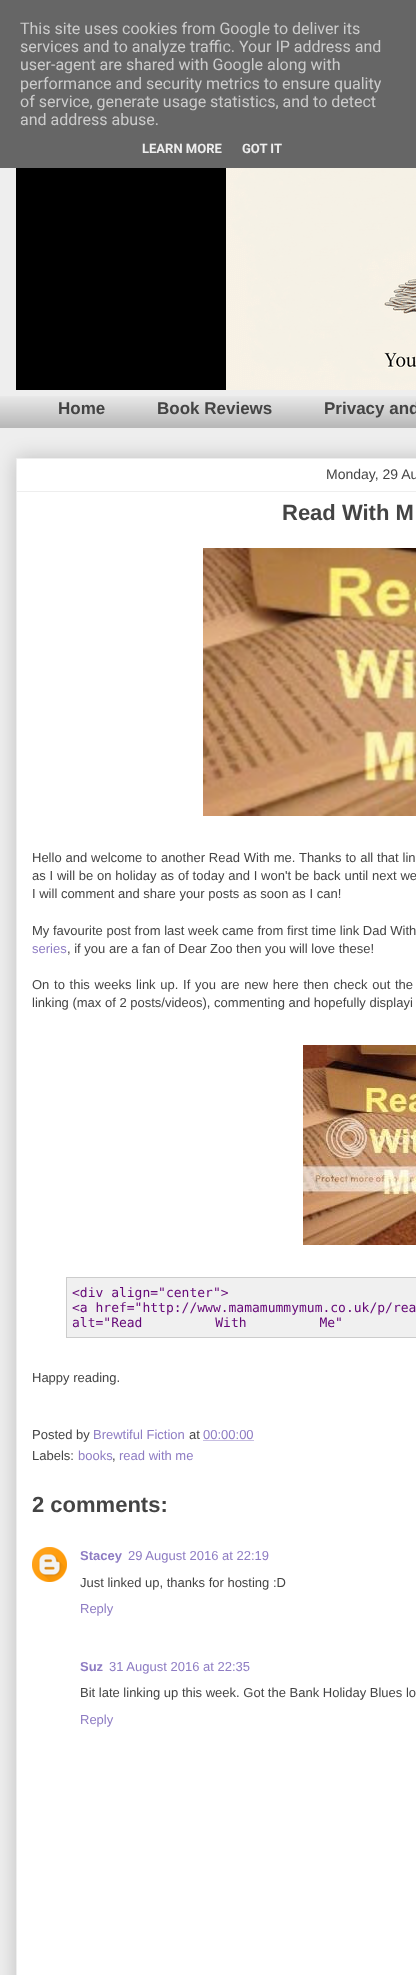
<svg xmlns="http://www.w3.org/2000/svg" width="416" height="1975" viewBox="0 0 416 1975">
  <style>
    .t1 { font: 16px Roboto; fill: #ccc; }
    .t2 { font: bold 13px Roboto; fill: #eee; }
    .t3 { font: bold 17px Liberation Sans; fill: #444; }
    .t4 { font: 14px Liberation Sans; fill: #444; }
    .t5 { font: bold 22px Liberation Sans; fill: #444; }
    .t6 { font: 13px Liberation Sans; fill: #444; }
    .t7 { font: 13px Liberation Sans; fill: #8e7cc3; }
    .t8 { font: 13px DejaVu Sans Mono; fill: #650777; }
    .t9 { font: bold 13px Liberation Sans; fill: #8e7cc3; }
  </style>
  <rect width="100%" height="100%" fill="#eee"/>
  <rect x="0" y="0" width="416" height="168" fill="#666"/>
  <text x="20" y="34" class="t1">This site uses cookies from Google to deliver its</text>
  <text x="20" y="52" class="t1">services and to analyze traffic. Your IP address and</text>
  <text x="20" y="70" class="t1">user-agent are shared with Google along with</text>
  <text x="20" y="89" class="t1">performance and security metrics to ensure quality</text>
  <text x="20" y="107" class="t1">of service, generate usage statistics, and to detect</text>
  <text x="20" y="125" class="t1">and address abuse.</text>
  <text x="142" y="153" class="t2">LEARN MORE</text>
  <text x="242" y="153" class="t2">GOT IT</text>
  <image x="16" y="168" width="400" height="222" href="images/1.png"/>
  <image x="0" y="396" width="416" height="32" href="images/2.png"/>
  <text x="58" y="414" class="t3">Home</text>
  <text x="157" y="414" class="t3">Book Reviews</text>
  <text x="324" y="414" class="t3">Privacy and</text>
  <rect x="16" y="458" width="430" height="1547" fill="#00000033" filter="blur(10px)"/>
  <rect x="16.5" y="458.5" width="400" height="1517" fill="#fff" stroke="#eee"/>
  <text x="326" y="479" class="t4">Monday, 29 Au</text>
  <rect x="17" y="491" width="399" height="1" fill="#eee"/>
  <text x="282" y="520" class="t5">Read With M</text>
  <image x="203" y="548" width="213" height="268" href="images/3.png"/>
  <text x="32" y="862" word-spacing="0.25" class="t6">Hello and welcome to another Read With me. Thanks to all that lin</text>
  <text x="32" y="880" word-spacing="0.2" class="t6">as I will be on holiday as of today and I won't be back until next we</text>
  <text x="32" y="898" class="t6">I will comment and share your posts as soon as I can!</text>
  <text x="32" y="935" class="t6">My favourite post from last week came from first time link Dad With</text>
  <text x="32" y="953" class="t7">series</text>
  <text x="67" y="953" class="t6">, if you are a fan of Dear Zoo then you will love these!</text>
  <text x="32" y="989" word-spacing="1.1" class="t6">On to this weeks link up. If you are new here then check out the</text>
  <text x="32" y="1007" class="t6">linking (max of 2 posts/videos), commenting and hopefully displayi</text>
  <image x="303" y="1045" width="113" height="200" href="images/4.png"/>
  <rect x="66.5" y="1277.5" width="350" height="60" fill="#f0f0f0" stroke="#ccc"/>
  <text x="72" y="1297" class="t8">&lt;div align="center"&gt;</text>
  <text x="72" y="1312" class="t8">&lt;a href="http://www.mamamummymum.co.uk/p/rea</text>
  <text x="72" y="1327" word-spacing="65" class="t8">alt="Read With Me"</text>
  <text x="32" y="1382" class="t6">Happy reading.</text>
  <text x="32" y="1439" class="t6">Posted by</text>
  <text x="93" y="1439" class="t7">Brewtiful Fiction</text>
  <text x="189" y="1439" class="t6">at</text>
  <text x="203" y="1439" class="t7">00:00:00</text>
  <path d="M203.5 1440.5H254" fill="none" stroke="#8e7cc3" stroke-dasharray="1 1"/>
  <text x="32" y="1460" class="t6">Labels:</text>
  <text x="78" y="1460" class="t7">books</text>
  <text x="112" y="1460" class="t6">,</text>
  <text x="119" y="1460" class="t7">read with me</text>
  <text x="32" y="1512" class="t5">2 comments:</text>
  <image x="32" y="1547" width="35" height="35" href="images/5.png"/>
  <text x="80" y="1560" class="t9">Stacey</text>
  <text x="128" y="1560" class="t7">29 August 2016 at 22:19</text>
  <text x="80" y="1587" class="t6">Just linked up, thanks for hosting :D</text>
  <text x="80" y="1613" class="t7">Reply</text>
  <text x="80" y="1671" class="t9">Suz</text>
  <text x="109" y="1671" class="t7">31 August 2016 at 22:35</text>
  <text x="80" y="1697" class="t6">Bit late linking up this week. Got the Bank Holiday Blues lo</text>
  <text x="80" y="1724" class="t7">Reply</text>
</svg>
